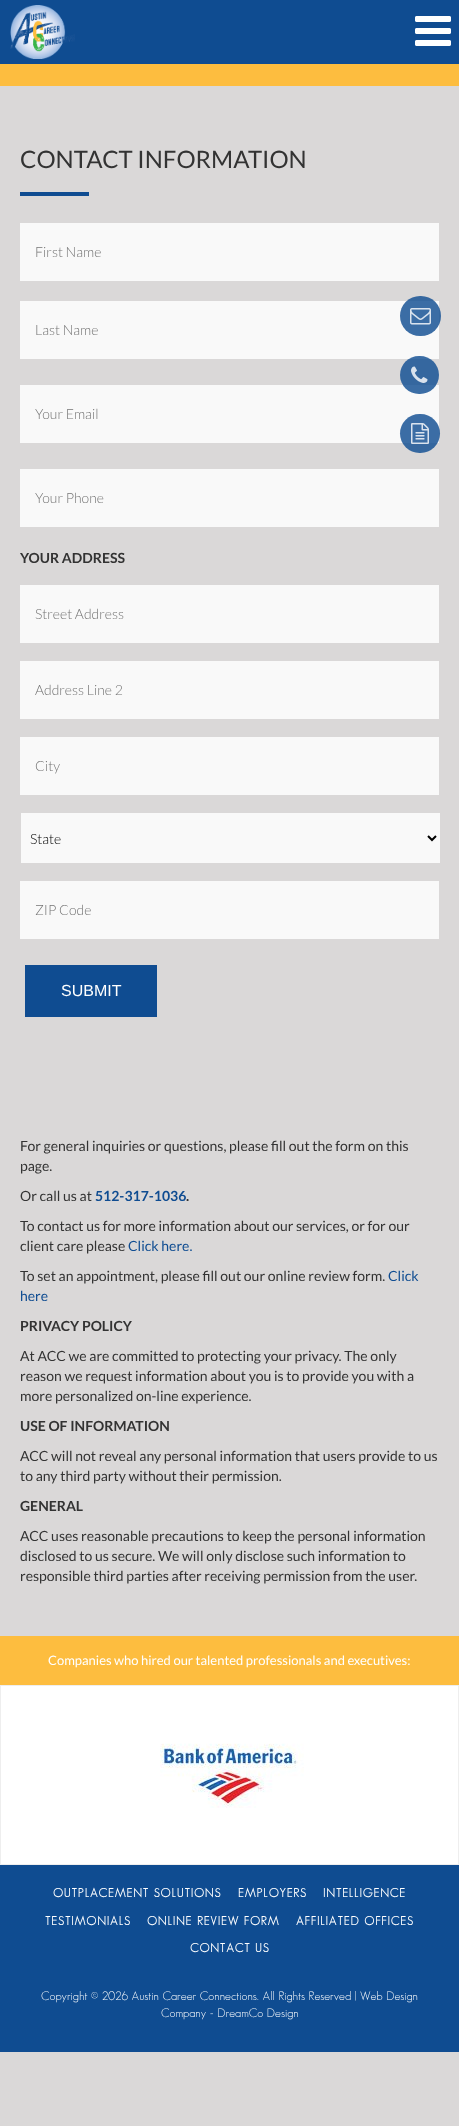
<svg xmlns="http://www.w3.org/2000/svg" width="459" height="2126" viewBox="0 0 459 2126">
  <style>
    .t1 { font: 24px Lato; fill: #333; }
    .t2 { font: 300 14px Lato; fill: #757575; }
    .t3 { font: bold 14px Lato; fill: #333; }
    .t4 { font: 300 14px Lato; fill: #000; }
    .t5 { font: 16px Liberation Sans; fill: #fff; }
    .t6 { font: 14px Lato; fill: #333; }
    .t7 { font: bold 14px Lato; fill: #0f4c91; }
    .t8 { font: 14px Lato; fill: #0f4c91; }
    .t9 { font: 13px Lato; fill: #fff; }
    .t10 { font: bold 12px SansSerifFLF; letter-spacing: 1px; fill: #fff; }
    .t11 { font: 500 12px SansSerifFLF; fill: #fff; }
  </style>
  <rect width="100%" height="100%" fill="#dad8d8"/>
  <rect x="0" y="0" width="459" height="64" fill="#0f4c91"/>
  <image x="10" y="5" width="65" height="54" href="images/1.png"/>
  <image x="415" y="16" width="36" height="30" href="images/2.png"/>
  <rect x="0" y="64" width="459" height="22" fill="#fdbd3f"/>
  <text x="20" y="168" class="t1">CONTACT INFORMATION</text>
  <rect x="20" y="192" width="69" height="4" fill="#0f4c91"/>
  <rect x="20" y="223" width="419" height="58" fill="#f9f9f9"/>
  <text x="35" y="257" class="t2">First Name</text>
  <rect x="20" y="301" width="419" height="58" fill="#f9f9f9"/>
  <text x="35" y="335" class="t2">Last Name</text>
  <rect x="20" y="385" width="419" height="58" fill="#f9f9f9"/>
  <text x="35" y="419" class="t2">Your Email</text>
  <rect x="20" y="469" width="419" height="58" fill="#f9f9f9"/>
  <text x="35" y="503" class="t2">Your Phone</text>
  <text x="20" y="563" class="t3">YOUR ADDRESS</text>
  <rect x="20" y="585" width="419" height="58" fill="#f9f9f9"/>
  <text x="35" y="619" class="t2">Street Address</text>
  <rect x="20" y="661" width="419" height="58" fill="#f9f9f9"/>
  <text x="35" y="695" class="t2">Address Line 2</text>
  <rect x="20" y="737" width="419" height="58" fill="#f9f9f9"/>
  <text x="35" y="771" class="t2">City</text>
  <rect x="21" y="813" width="419" height="50" fill="#f9f9f9"/>
  <path d="M428 836L432 840L436 836" fill="none" stroke="#000" stroke-width="2"/>
  <text x="30" y="844" class="t4">State</text>
  <rect x="20" y="881" width="419" height="58" fill="#f9f9f9"/>
  <text x="35" y="915" class="t2">ZIP Code</text>
  <rect x="25" y="965" width="132" height="52" fill="#0f4c91"/>
  <text x="61" y="996" class="t5">SUBMIT</text>
  <text x="20" y="1151" class="t6">For general inquiries or questions, please fill out the form on this</text>
  <text x="20" y="1171" class="t6">page.</text>
  <text x="20" y="1201" class="t6">Or call us at</text>
  <text x="95" y="1201" class="t7">512-317-1036</text>
  <text x="186" y="1201" class="t3">.</text>
  <text x="20" y="1231" class="t6">To contact us for more information about our services, or for our</text>
  <text x="20" y="1251" class="t6">client care please</text>
  <text x="128" y="1251" class="t8">Click here.</text>
  <text x="20" y="1281" class="t6">To set an appointment, please fill out our online review form.</text>
  <text x="388" y="1281" class="t8">Click</text>
  <text x="20" y="1301" class="t8">here</text>
  <text x="20" y="1331" class="t3">PRIVACY POLICY</text>
  <text x="20" y="1361" class="t6">At ACC we are committed to protecting your privacy. The only</text>
  <text x="20" y="1381" class="t6">reason we request information about you is to provide you with a</text>
  <text x="20" y="1401" class="t6">more personalized on-line experience.</text>
  <text x="20" y="1431" class="t3">USE OF INFORMATION</text>
  <text x="20" y="1461" class="t6">ACC will not reveal any personal information that users provide to us</text>
  <text x="20" y="1481" class="t6">to any third party without their permission.</text>
  <text x="20" y="1511" class="t3">GENERAL</text>
  <text x="20" y="1541" class="t6">ACC uses reasonable precautions to keep the personal information</text>
  <text x="20" y="1561" class="t6">disclosed to us secure. We will only disclose such information to</text>
  <text x="20" y="1581" class="t6">responsible third parties after receiving permission from the user.</text>
  <rect x="400" y="296" width="41" height="40" rx="20" fill="#0f4c91cf"/>
  <image x="410" y="308" width="21" height="17" href="images/3.png"/>
  <rect x="400" y="356" width="39" height="38" rx="19" fill="#0f4c91cf"/>
  <image x="411" y="366" width="17" height="17" href="images/4.png"/>
  <rect x="400" y="414" width="40" height="39" rx="19.5" fill="#0f4c91cf"/>
  <image x="411" y="423" width="18" height="21" href="images/5.png"/>
  <rect x="0" y="1636" width="459" height="49" fill="#fdbd3f"/>
  <text x="48" y="1665" class="t9">Companies who hired our talented professionals and executives:</text>
  <rect x="1" y="1686" width="457" height="178" fill="#fff"/>
  <image x="160" y="1743" width="144" height="65" href="images/6.png"/>
  <rect x="0.5" y="1685.5" width="458" height="179" fill="none" stroke="#eee"/>
  <rect x="0" y="1865" width="459" height="187" fill="#0f4c91"/>
  <text x="53" y="1897" class="t10">OUTPLACEMENT SOLUTIONS</text>
  <text x="238" y="1897" class="t10">EMPLOYERS</text>
  <text x="323" y="1897" class="t10">INTELLIGENCE</text>
  <text x="45" y="1925" class="t10">TESTIMONIALS</text>
  <text x="147" y="1925" class="t10">ONLINE REVIEW FORM</text>
  <text x="296" y="1925" class="t10">AFFILIATED OFFICES</text>
  <text x="190" y="1952" class="t10">CONTACT US</text>
  <text x="41" y="2000" class="t11">Copyright © 2026 Austin Career Connections. All Rights Reserved | Web Design</text>
  <text x="161" y="2017" class="t11">Company - DreamCo Design</text>
</svg>
